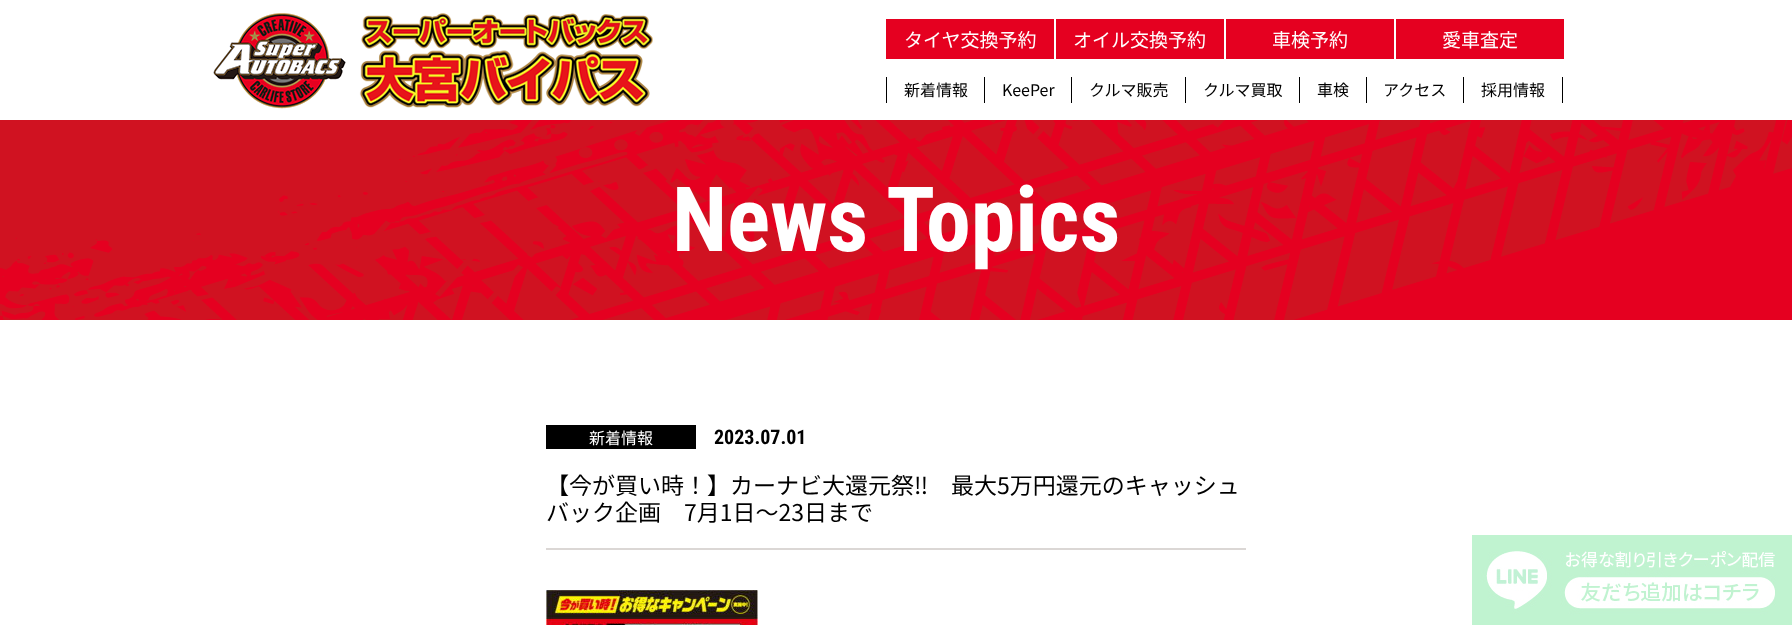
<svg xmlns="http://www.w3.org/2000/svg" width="1792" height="625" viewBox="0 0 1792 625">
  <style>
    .t1 { font: 19px Noto Sans JP; fill: #fff; }
    .t2 { font: 16px Noto Sans JP; fill: #000; }
    .t3 { font: bold 90px Roboto Condensed; fill: #fff; }
    .t4 { font: 16px Noto Sans JP; fill: #fff; }
    .t5 { font: bold 20px Roboto Condensed; fill: #000; }
    .t6 { font: 23px Noto Sans JP; fill: #000; }
  </style>
  <rect width="100%" height="100%" fill="#fff"/>
  <image x="213" y="13" width="440" height="96" href="images/1.png"/>
  <rect x="886" y="19" width="168" height="40" fill="#e50020"/>
  <text x="904" y="47" class="t1">タイヤ交換予約</text>
  <rect x="1056" y="19" width="168" height="40" fill="#e50020"/>
  <text x="1073" y="47" class="t1">オイル交換予約</text>
  <rect x="1226" y="19" width="168" height="40" fill="#e50020"/>
  <text x="1272" y="47" class="t1">車検予約</text>
  <rect x="1396" y="19" width="168" height="40" fill="#e50020"/>
  <text x="1442" y="47" class="t1">愛車査定</text>
  <rect x="886" y="77" width="1" height="26" fill="#000"/>
  <text x="904" y="96" class="t2">新着情報</text>
  <rect x="984" y="77" width="1" height="26" fill="#000"/>
  <text x="1002" y="96" class="t2">KeePer</text>
  <rect x="1071" y="77" width="1" height="26" fill="#000"/>
  <text x="1089" y="96" class="t2">クルマ販売</text>
  <rect x="1185" y="77" width="1" height="26" fill="#000"/>
  <text x="1203" y="96" class="t2">クルマ買取</text>
  <rect x="1299" y="77" width="1" height="26" fill="#000"/>
  <text x="1317" y="96" class="t2">車検</text>
  <rect x="1366" y="77" width="1" height="26" fill="#000"/>
  <text x="1383" y="96" class="t2">アクセス</text>
  <rect x="1562" y="77" width="1" height="26" fill="#000"/>
  <rect x="1463" y="77" width="1" height="26" fill="#000"/>
  <text x="1481" y="96" class="t2">採用情報</text>
  <rect x="0" y="120" width="1792" height="200" fill="#e50020"/>
  <image x="0" y="120" width="1792" height="200" href="images/2.png"/>
  <text x="672" y="251" class="t3">News Topics</text>
  <rect x="546" y="425" width="150" height="24" fill="#000"/>
  <text x="589" y="444" class="t4">新着情報</text>
  <text x="714" y="444" class="t5">2023.07.01</text>
  <rect x="546" y="548" width="700" height="2" fill="#dbd7d5"/>
  <text x="546" y="494" class="t6">【今が買い時！】カーナビ大還元祭‼　最大5万円還元のキャッシュ</text>
  <text x="546" y="521" class="t6">バック企画　7月1日～23日まで</text>
  <image x="546" y="590" width="212" height="35" href="images/3.png"/>
  <image x="1472" y="535" width="320" height="90" href="images/4.png"/>
</svg>
